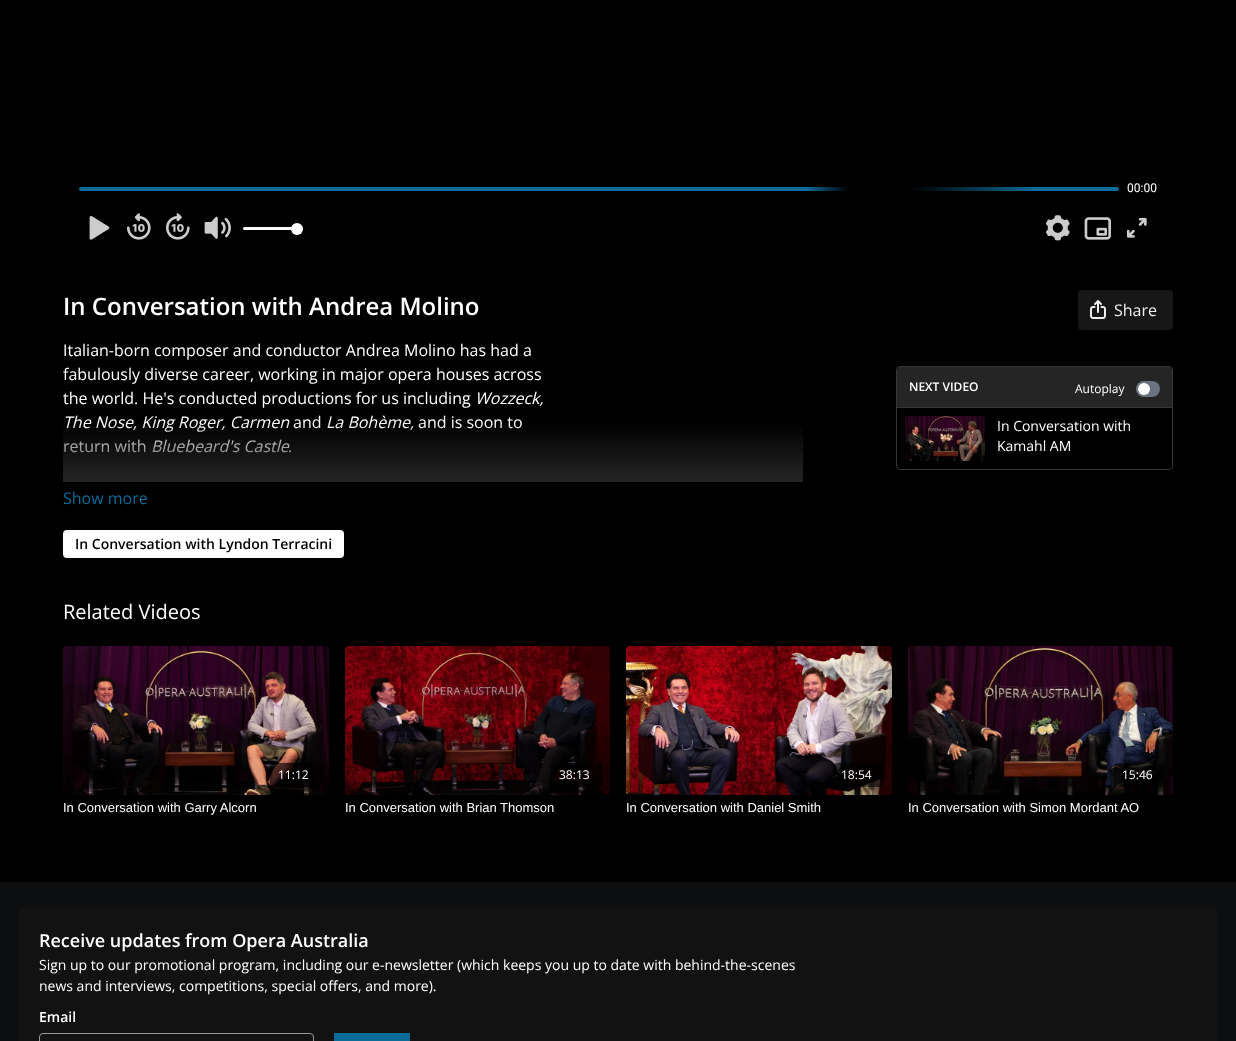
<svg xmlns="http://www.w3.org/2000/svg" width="1236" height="1041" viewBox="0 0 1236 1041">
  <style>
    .t1 { font: 12px Roboto; fill: #fff; }
    .t2 { font: 600 24px Open Sans; fill: #fff; }
    .t3 { font: 16px Open Sans; fill: #eee; }
    .t4 { font: 16px Open Sans; fill: #fff; }
    .t5 { font: italic 16px Open Sans; fill: #fff; }
    .t6 { font: 16px Open Sans; fill: #0b6c99; }
    .t7 { font: 600 14px Open Sans; fill: #000; }
    .t8 { font: 600 12px Open Sans; fill: #fff; }
    .t9 { font: 12px Open Sans; fill: #fff; }
    .t10 { font: 14px Open Sans; fill: #fff; }
    .t11 { font: 20px Open Sans; fill: #fff; }
    .t12 { font: 13px Liberation Sans; fill: #fff; }
    .t13 { font: 600 18px Open Sans; fill: #fff; }
    .t14 { font: 600 14px Open Sans; fill: #fff; }
  </style>
  <defs>
    <linearGradient id="g1" gradientUnits="userSpaceOnUse" x1="79" y1="191" x2="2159" y2="191"><stop offset="0.35" stop-color="#0b6c99"/><stop offset="0.37" stop-color="#000"/><stop offset="0.4" stop-color="#000"/><stop offset="0.46" stop-color="#0b6c99"/><stop offset="1" stop-color="#0b6c99"/></linearGradient>
    <linearGradient id="g2" gradientUnits="userSpaceOnUse" x1="433" y1="422" x2="433" y2="482"><stop offset="0" stop-color="#252525" stop-opacity="0"/><stop offset="1" stop-color="#252525"/></linearGradient>
  </defs>
  <rect width="100%" height="100%" fill="#0d0e10"/>
  <rect x="0" y="0" width="1236" height="882" fill="#000"/>
  <rect x="79" y="187" width="1040" height="4" rx="2" fill="url(#g1)"/>
  <text x="1127" y="192" class="t1">00:00</text>
  <image x="89" y="216" width="21" height="24" href="images/1.png"/>
  <image x="127" y="213" width="24" height="27" href="images/2.png"/>
  <image x="166" y="213" width="24" height="27" href="images/3.png"/>
  <image x="204" y="216" width="27" height="23" href="images/4.png"/>
  <rect x="243" y="227" width="60" height="3" rx="1.5" fill="#fff"/>
  <circle cx="297" cy="229" r="6" fill="#fff"/>
  <image x="1046" y="215" width="24" height="26" href="images/5.png"/>
  <image x="1084" y="217" width="27" height="23" href="images/6.png"/>
  <image x="1126" y="217" width="21" height="21" href="images/7.png"/>
  <text x="63" y="315" class="t2">In Conversation with Andrea Molino</text>
  <rect x="1078" y="290" width="95" height="40" rx="4" fill="#171717"/>
  <image x="1090" y="300" width="16" height="19" href="images/8.png"/>
  <text x="1114" y="316" class="t3">Share</text>
  <text x="63" y="356" class="t4">Italian-born composer and conductor Andrea Molino has had a</text>
  <text x="63" y="380" class="t4">fabulously diverse career, working in major opera houses across</text>
  <text x="63" y="404" class="t4">the world. He's conducted productions for us including</text>
  <text x="475" y="404" class="t5">Wozzeck,</text>
  <text x="63" y="428" class="t5">The Nose, King Roger, Carmen</text>
  <text x="293" y="428" class="t4">and</text>
  <text x="326" y="428" class="t5">La Bohème,</text>
  <text x="418" y="428" class="t4">and is soon to</text>
  <text x="63" y="452" class="t4">return with</text>
  <text x="151" y="452" class="t5">Bluebeard's Castle</text>
  <text x="288" y="452" class="t4">.</text>
  <rect x="63" y="423" width="740" height="59" fill="url(#g2)"/>
  <text x="63" y="504" class="t6">Show more</text>
  <rect x="63" y="530" width="281" height="28" rx="4" fill="#fff"/>
  <text x="75" y="549" class="t7">In Conversation with Lyndon Terracini</text>
  <rect x="896.5" y="366.5" width="276" height="103" rx="3.5" fill="none" stroke="#373737"/>
  <path d="M900 367H1169C1170.5 367 1172 368.5 1172 370V407H897V370C897 368.5 898.5 367 900 367Z" fill="#252525"/>
  <rect x="897" y="407" width="275" height="1" fill="#373737"/>
  <text x="909" y="391" class="t8">NEXT VIDEO</text>
  <text x="1075" y="393" class="t9">Autoplay</text>
  <rect x="1136" y="381" width="24" height="16" rx="8" fill="#6b7280"/>
  <circle cx="1144" cy="389" r="6" fill="#fff"/>
  <image x="905" y="416" width="80" height="45" href="images/9.png"/>
  <text x="997" y="431" class="t10">In Conversation with</text>
  <text x="997" y="451" class="t10">Kamahl AM</text>
  <text x="63" y="619" class="t11">Related Videos</text>
  <image x="63" y="646" width="266" height="149" href="images/10.png"/>
  <rect x="270" y="763" width="51" height="24" rx="4" fill="#00000099"/>
  <text x="278" y="779" class="t9">11:12</text>
  <text x="63" y="812" class="t12">In Conversation with Garry Alcorn</text>
  <image x="345" y="646" width="265" height="149" href="images/11.png"/>
  <rect x="551" y="763" width="51" height="24" rx="4" fill="#00000099"/>
  <text x="559" y="779" class="t9">38:13</text>
  <text x="345" y="812" class="t12">In Conversation with Brian Thomson</text>
  <image x="626" y="646" width="266" height="149" href="images/12.png"/>
  <rect x="833" y="763" width="51" height="24" rx="4" fill="#00000099"/>
  <text x="841" y="779" class="t9">18:54</text>
  <text x="626" y="812" class="t12">In Conversation with Daniel Smith</text>
  <image x="908" y="646" width="265" height="149" href="images/13.png"/>
  <rect x="1114" y="763" width="51" height="24" rx="4" fill="#00000099"/>
  <text x="1122" y="779" class="t9">15:46</text>
  <text x="908" y="812" class="t12">In Conversation with Simon Mordant AO</text>
  <rect x="19" y="907" width="1198" height="134" fill="#121212"/>
  <text x="39" y="947" class="t13">Receive updates from Opera Australia</text>
  <text x="39" y="970" class="t10">Sign up to our promotional program, including our e-newsletter (which keeps you up to date with behind-the-scenes</text>
  <text x="39" y="991" class="t10">news and interviews, competitions, special offers, and more).</text>
  <text x="39" y="1022" class="t14">Email</text>
  <rect x="39.5" y="1033.5" width="274" height="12" rx="3.5" fill="none" stroke="#979797"/>
  <rect x="334" y="1033" width="76" height="8" fill="#0b6c99"/>
</svg>
